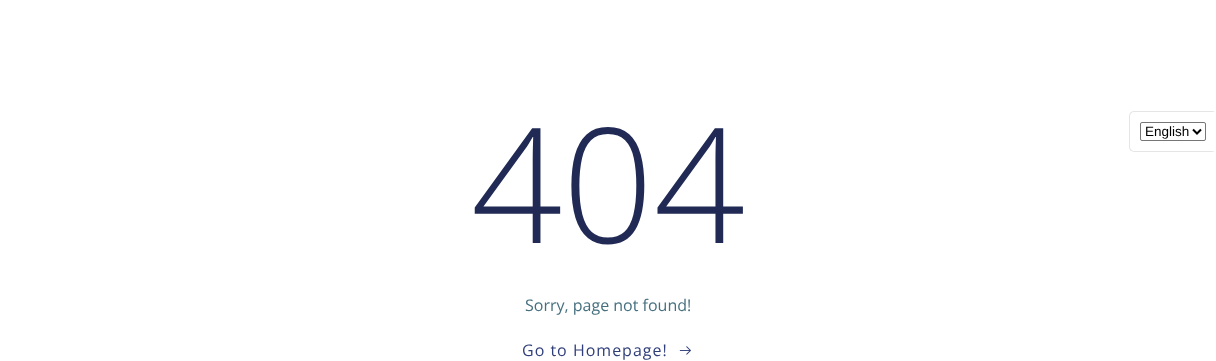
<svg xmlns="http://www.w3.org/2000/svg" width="1216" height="361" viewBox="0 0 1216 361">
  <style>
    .t1 { font: 300 160px Open Sans; fill: #202a54; }
    .t2 { font: 16px Open Sans; fill: #46707f; }
    .t3 { font: 16px Open Sans; letter-spacing: 1px; fill: #303e7a; }
    .t4 { font: 13.5px Liberation Sans; fill: #000; }
  </style>
  <rect width="100%" height="100%" fill="#fff"/>
  <text x="471" y="243" class="t1">404</text>
  <text x="525" y="311" class="t2">Sorry, page not found!</text>
  <text x="522" y="356" class="t3">Go to Homepage!</text>
  <image x="679" y="346" width="12" height="9" href="images/1.png"/>
  <rect x="1129" y="111" width="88" height="41" rx="5" fill="#0000001a" filter="blur(0.5px)"/>
  <path d="M1134 112H1216V151H1134C1132 151 1130 149 1130 147V116C1130 114 1132 112 1134 112Z" fill="#fff"/>
  <rect x="1140.5" y="122.5" width="65" height="18" rx="1.5" fill="none" stroke="#767676"/>
  <path d="M1193 129.5L1197 133.5L1201 129.5" fill="none" stroke="#000" stroke-width="2"/>
  <text x="1145" y="136" class="t4">English</text>
</svg>
